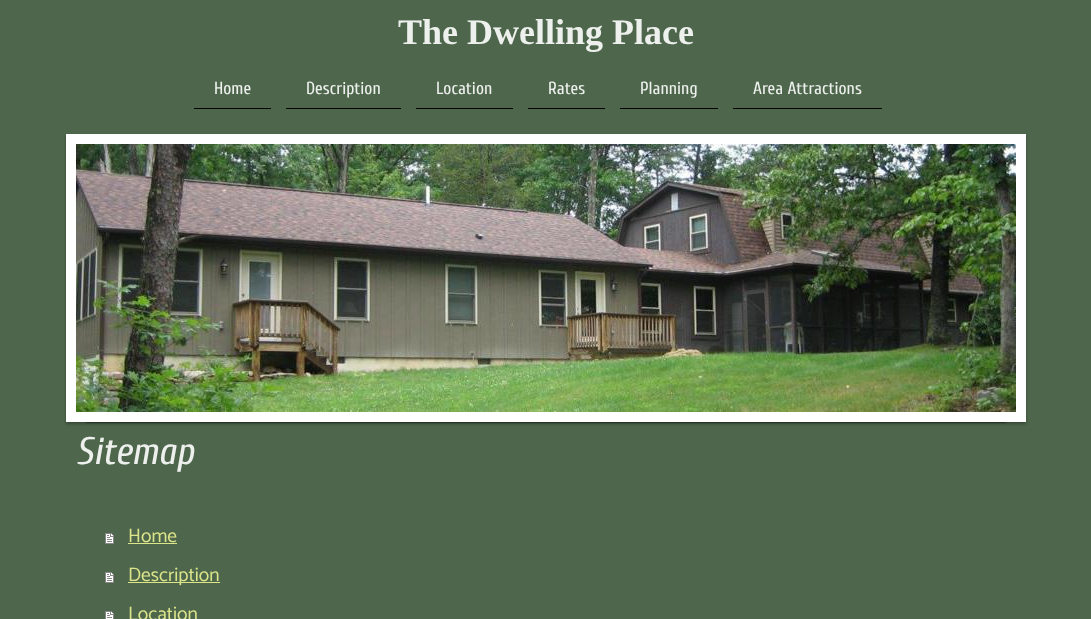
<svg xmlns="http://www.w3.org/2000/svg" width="1091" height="619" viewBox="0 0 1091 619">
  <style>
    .t1 { font: bold 36px Liberation Serif; fill: #edf0ed; }
    .t2 { font: 17.5px Cuprum; fill: #edf0ed; }
    .t3 { font: italic 38.5px Cuprum; fill: #edf0ed; }
    .t4 { font: 19.5px Catamaran; fill: #dde58a; }
  </style>
  <rect width="100%" height="100%" fill="#4e674c"/>
  <text x="398" y="44" class="t1">The Dwelling Place</text>
  <text x="214" y="94" class="t2">Home</text>
  <rect x="194" y="108" width="77" height="1" fill="#010100"/>
  <text x="306" y="94" class="t2">Description</text>
  <rect x="286" y="108" width="115" height="1" fill="#010100"/>
  <text x="436" y="94" class="t2">Location</text>
  <rect x="416" y="108" width="97" height="1" fill="#010100"/>
  <text x="548" y="94" class="t2">Rates</text>
  <rect x="528" y="108" width="77" height="1" fill="#010100"/>
  <text x="640" y="94" class="t2">Planning</text>
  <rect x="620" y="108" width="98" height="1" fill="#010100"/>
  <text x="753" y="94" class="t2">Area Attractions</text>
  <rect x="733" y="108" width="149" height="1" fill="#010100"/>
  <rect x="66" y="136" width="960" height="288" fill="#0000004d" filter="blur(1.5px)"/>
  <rect x="86" y="174" width="920" height="248" fill="#000" filter="blur(1px)"/>
  <rect x="71" y="139" width="950" height="278" fill="none" stroke="#fff" stroke-width="10"/>
  <image x="76" y="144" width="940" height="268" href="images/1.png"/>
  <text x="76" y="464" class="t3">Sitemap</text>
  <image x="105" y="533" width="9" height="11" href="images/2.png"/>
  <text x="128" y="542" class="t4">Home</text>
  <rect x="128" y="543" width="49" height="1" fill="#dde58a"/>
  <image x="105" y="572" width="9" height="11" href="images/2.png"/>
  <rect x="128" y="582" width="92" height="1" fill="#dde58a"/>
  <text x="128" y="581" class="t4">Description</text>
  <image x="105" y="611" width="9" height="8" href="images/3.png"/>
  <text x="128" y="620" class="t4">Location</text>
</svg>
